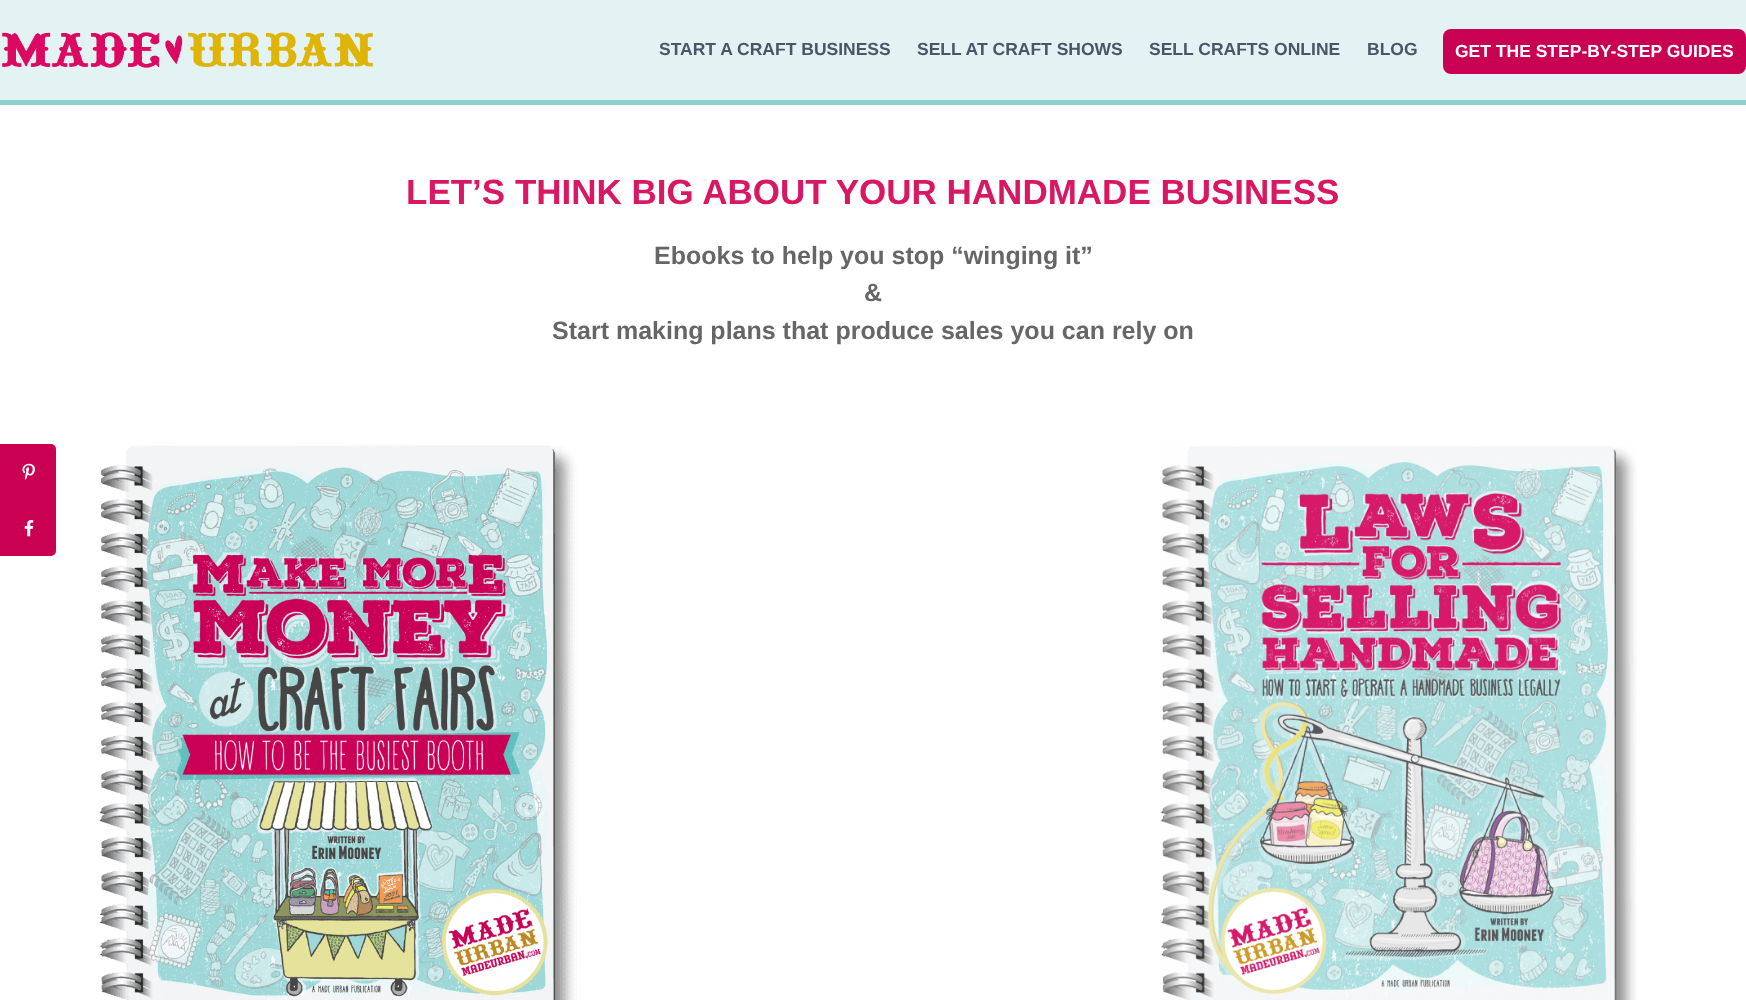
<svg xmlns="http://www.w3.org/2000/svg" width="1746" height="1000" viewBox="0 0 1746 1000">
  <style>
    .t1 { font: bold 17.5px Liberation Sans; fill: #4a5568; }
    .t2 { font: bold 17.5px Liberation Sans; fill: #fff; }
    .t3 { font: bold 35px Liberation Sans; fill: #d91863; }
    .t4 { font: bold 25px Liberation Sans; fill: #666; }
  </style>
  <rect width="100%" height="100%" fill="#fff"/>
  <rect x="0" y="0" width="1746" height="100" fill="#e3f2f3"/>
  <rect x="0" y="100" width="1746" height="5" fill="#8ccfcd"/>
  <image x="2" y="32" width="371" height="36" href="images/1.png"/>
  <text x="659" y="55" class="t1">START A CRAFT BUSINESS</text>
  <text x="917" y="55" class="t1">SELL AT CRAFT SHOWS</text>
  <text x="1149" y="55" class="t1">SELL CRAFTS ONLINE</text>
  <text x="1367" y="55" class="t1">BLOG</text>
  <rect x="1443" y="29" width="303" height="45" rx="8" fill="#c90152"/>
  <text x="1455" y="57" class="t2">GET THE STEP-BY-STEP GUIDES</text>
  <text x="406" y="204" class="t3">LET’S THINK BIG ABOUT YOUR HANDMADE BUSINESS</text>
  <text x="654" y="264" class="t4">Ebooks to help you stop “winging it”</text>
  <text x="864" y="301" class="t4">&amp;</text>
  <text x="552" y="339" class="t4">Start making plans that produce sales you can rely on</text>
  <image x="99" y="444" width="478" height="556" href="images/2.png"/>
  <image x="1160" y="446" width="477" height="554" href="images/3.png"/>
  <path d="M1.5 445.5H51C53 445.5 54.5 447 54.5 449V498.5H1.5Z" fill="#ca0052" stroke="#ca0052" stroke-width="3"/>
  <image x="22" y="463" width="13" height="17" href="images/4.png"/>
  <path d="M1.5 501.5H54.5V551C54.5 553 53 554.5 51 554.5H1.5Z" fill="#ca0052" stroke="#ca0052" stroke-width="3"/>
  <image x="24" y="520" width="10" height="17" href="images/5.png"/>
</svg>
